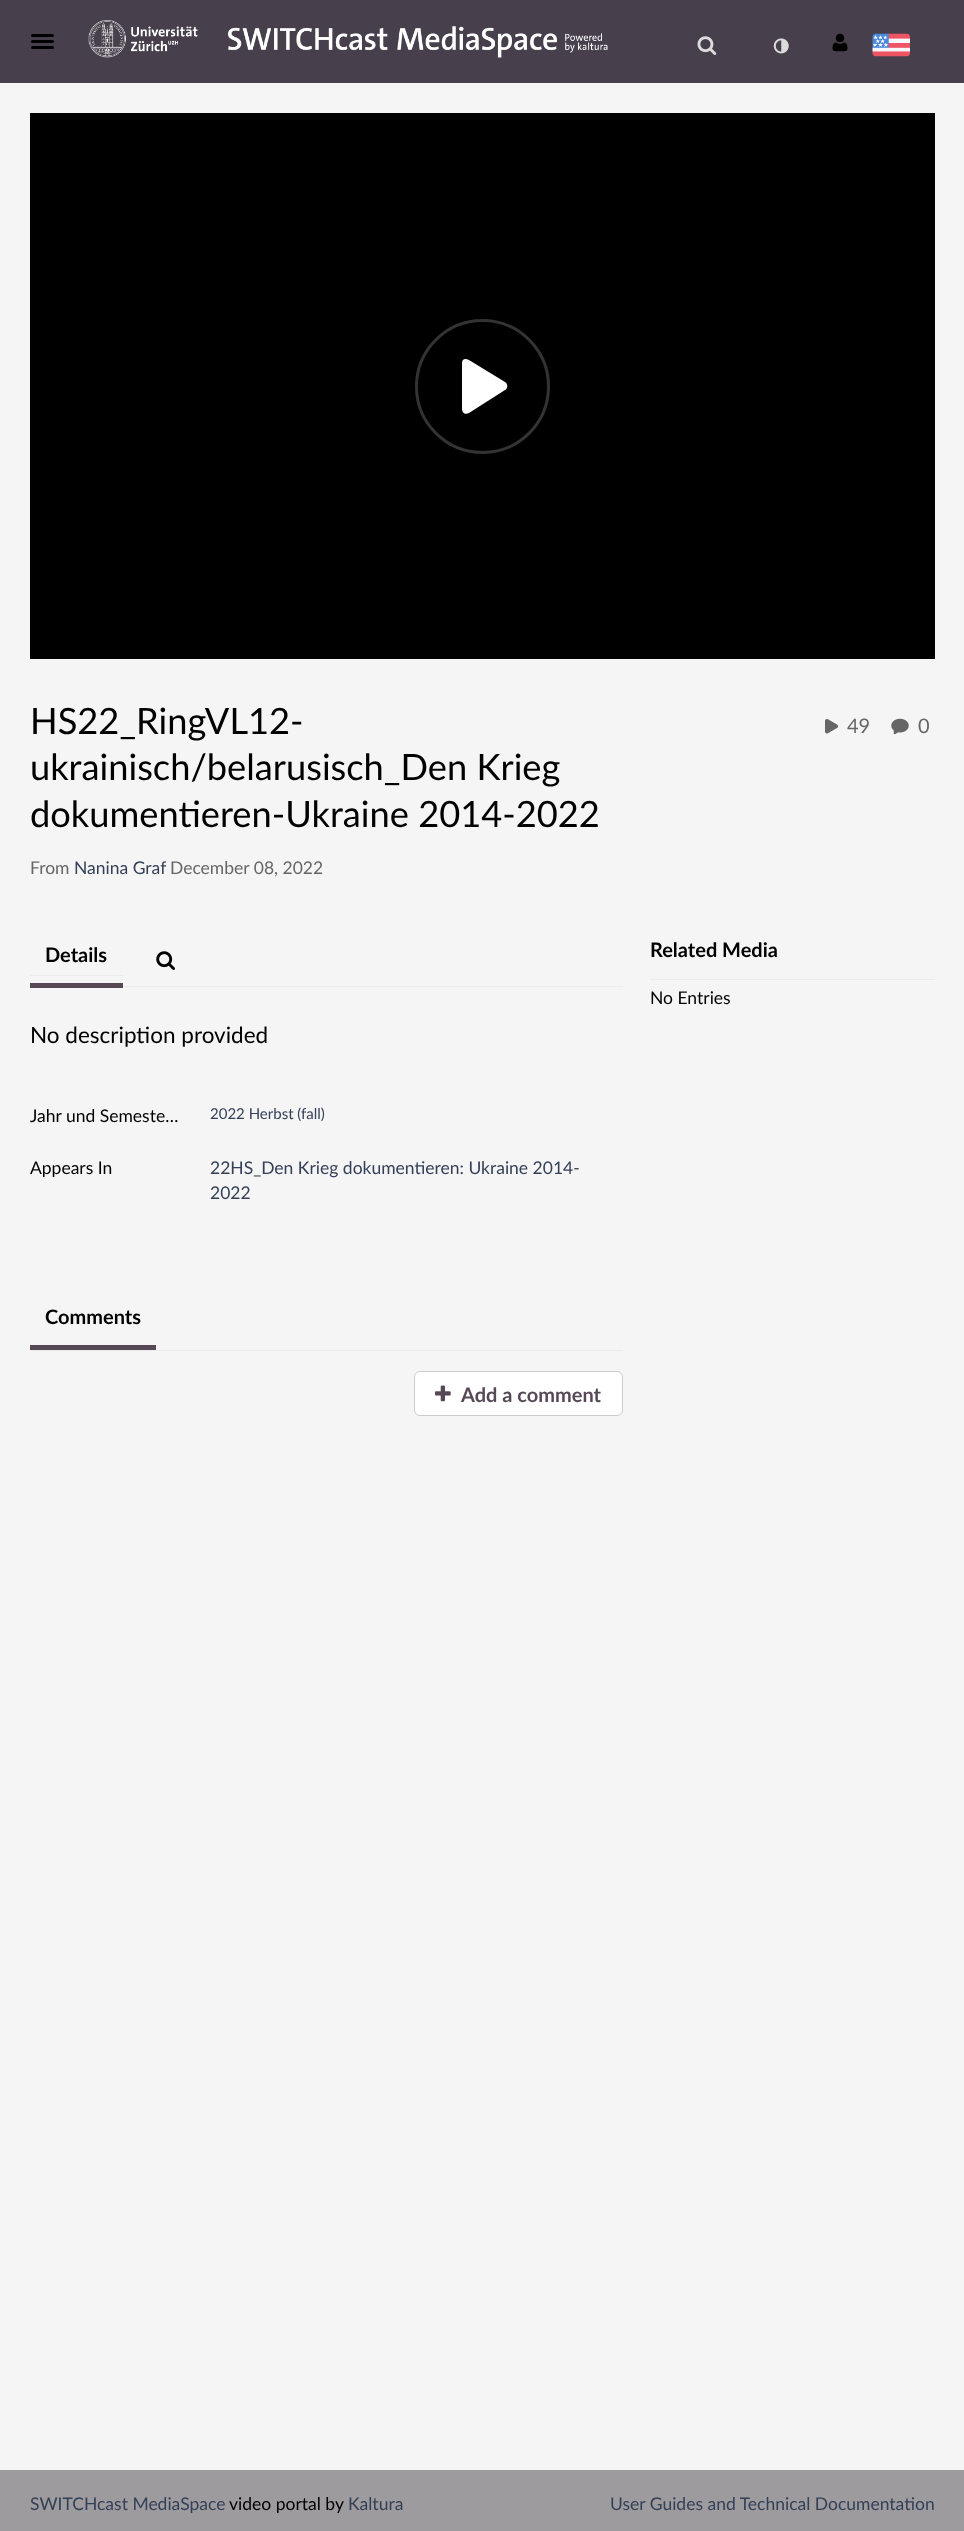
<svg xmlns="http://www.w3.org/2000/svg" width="964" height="2531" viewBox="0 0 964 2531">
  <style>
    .t1 { font: 36.25px Lato; fill: #000; }
    .t2 { font: 17.5px Lato; fill: #666; }
    .t3 { font: 17.5px Lato; fill: #344057; }
    .t4 { font: 20px Lato; fill: #666; }
    .t5 { font: bold 20px Lato; fill: #000; }
    .t6 { font: 22.5px Lato; fill: #000; }
    .t7 { font: 17.5px Lato; fill: #000; }
    .t8 { font: 15px Lato; fill: #344057; }
    .t9 { font: bold 20px Lato; fill: #564955; }
  </style>
  <rect width="100%" height="100%" fill="#f5f5f5"/>
  <rect x="0" y="0" width="964" height="83" fill="#47404c"/>
  <rect x="31" y="34" width="23" height="3" rx="1.5" fill="#000"/>
  <rect x="31" y="40" width="23" height="3" rx="1.5" fill="#000"/>
  <rect x="31" y="46" width="23" height="3" rx="1.5" fill="#000"/>
  <image x="88" y="20" width="520" height="38" href="images/1.png"/>
  <image x="697" y="36" width="20" height="19" href="images/2.png"/>
  <image x="773" y="38" width="16" height="16" href="images/3.png"/>
  <image x="832" y="33" width="16" height="19" href="images/4.png"/>
  <image x="872" y="33" width="38" height="24" href="images/5.png"/>
  <rect x="30" y="113" width="905" height="546" fill="#000"/>
  <circle cx="482.5" cy="386.5" r="66" fill="none" stroke="#333" stroke-width="3"/>
  <path d="M505 382C508 384 508 388 505 390L469 413C465 415 462 413 462 409V363C462 359 465 358 469 360Z" fill="#fff"/>
  <text x="30" y="734" class="t1">HS22_RingVL12-</text>
  <text x="30" y="780" class="t1">ukrainisch/belarusisch_Den Krieg</text>
  <text x="30" y="827" class="t1">dokumentieren-Ukraine 2014-2022</text>
  <text x="30" y="874" class="t2">From</text>
  <text x="74" y="874" class="t3">Nanina Graf</text>
  <text x="170" y="874" class="t2">December 08, 2022</text>
  <image x="825" y="719" width="13" height="15" href="images/6.png"/>
  <text x="847" y="733" class="t4">49</text>
  <image x="891" y="718" width="18" height="17" href="images/7.png"/>
  <text x="918" y="733" class="t4">0</text>
  <rect x="123" y="986" width="500" height="1" fill="#ebebeb"/>
  <rect x="30" y="975" width="93" height="1" fill="#ebebeb"/>
  <rect x="30" y="983" width="93" height="5" fill="#564955"/>
  <text x="45" y="962" class="t5">Details</text>
  <image x="156" y="951" width="19" height="19" href="images/8.png"/>
  <text x="30" y="1043" class="t6">No description provided</text>
  <text x="30" y="1122" class="t7">Jahr und Semeste…</text>
  <text x="210" y="1119" class="t8">2022 Herbst (fall)</text>
  <text x="30" y="1174" class="t7">Appears In</text>
  <text x="210" y="1174" class="t3">22HS_Den Krieg dokumentieren: Ukraine 2014-</text>
  <text x="210" y="1199" class="t3">2022</text>
  <rect x="30" y="1350" width="593" height="1" fill="#ebebeb"/>
  <rect x="30" y="1345" width="126" height="5" fill="#564955"/>
  <text x="45" y="1324" class="t5">Comments</text>
  <rect x="414.5" y="1371.5" width="208" height="44" rx="5.5" fill="#fff" stroke="#ccc"/>
  <image x="435" y="1385" width="16" height="17" href="images/9.png"/>
  <text x="461" y="1402" class="t9">Add a comment</text>
  <rect x="650" y="979" width="285" height="1" fill="#ebebeb"/>
  <text x="650" y="957" class="t5">Related Media</text>
  <text x="650" y="1004" class="t7">No Entries</text>
  <rect x="0" y="2470" width="964" height="61" fill="#9d9b9e"/>
  <text x="30" y="2510" class="t3">SWITCHcast MediaSpace</text>
  <text x="229" y="2510" class="t7">video portal by</text>
  <text x="348" y="2510" class="t3">Kaltura</text>
  <text x="610" y="2510" class="t3">User Guides and Technical Documentation</text>
</svg>
